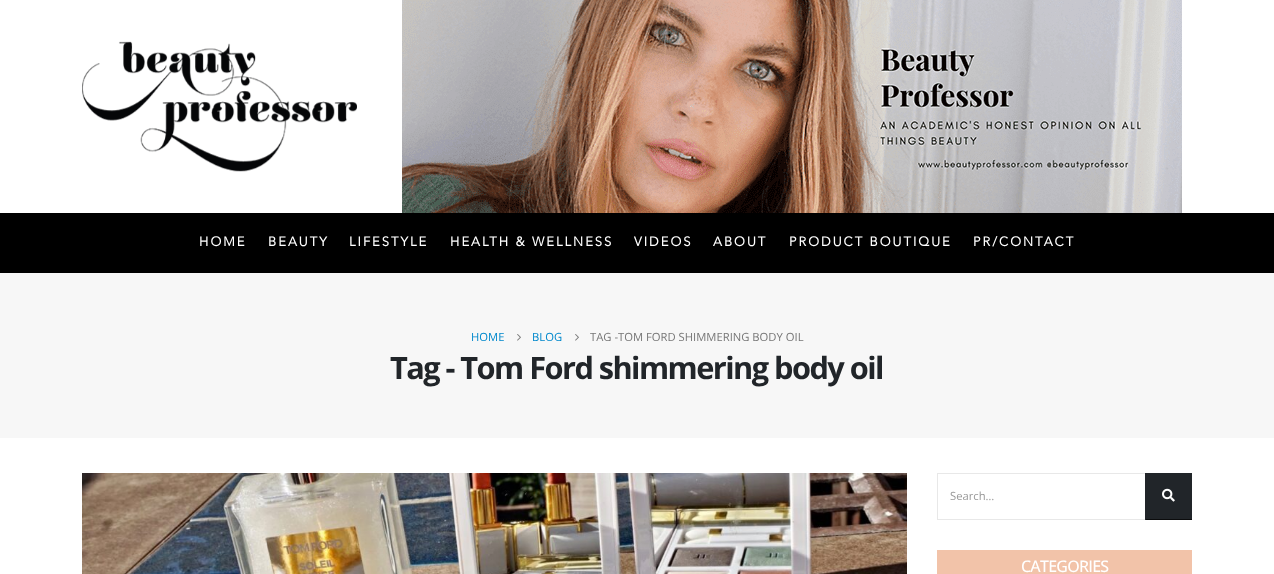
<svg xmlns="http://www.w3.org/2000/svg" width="1274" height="574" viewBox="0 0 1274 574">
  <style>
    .t1 { font: bold 13px Avenir; letter-spacing: 2px; fill: #fff; }
    .t2 { font: 11.25px Open Sans; fill: #08c; }
    .t3 { font: 11.25px Open Sans; fill: #777; }
    .t4 { font: bold 30.75px Open Sans; letter-spacing: -1.55px; fill: #212529; }
    .t5 { font: 11.25px Open Sans; fill: #999; }
    .t6 { font: 500 16px Open Sans; letter-spacing: -0.75px; fill: #fff; }
  </style>
  <rect width="100%" height="100%" fill="#fff"/>
  <image x="82" y="41" width="275" height="131" href="images/1.png"/>
  <image x="402" y="0" width="780" height="213" href="images/2.png"/>
  <rect x="0" y="213" width="1274" height="60" fill="#000"/>
  <text x="199" y="246" class="t1">HOME</text>
  <text x="268" y="246" class="t1">BEAUTY</text>
  <text x="349" y="246" class="t1">LIFESTYLE</text>
  <text x="450" y="246" class="t1">HEALTH &amp; WELLNESS</text>
  <text x="634" y="246" class="t1">VIDEOS</text>
  <text x="713" y="246" class="t1">ABOUT</text>
  <text x="789" y="246" class="t1">PRODUCT BOUTIQUE</text>
  <text x="973" y="246" class="t1">PR/CONTACT</text>
  <rect x="0" y="273" width="1274" height="165" fill="#f7f7f7"/>
  <text x="471" y="341" class="t2">HOME</text>
  <image x="517" y="334" width="4" height="7" href="images/3.png"/>
  <text x="532" y="341" class="t2">BLOG</text>
  <image x="575" y="334" width="4" height="7" href="images/3.png"/>
  <text x="590" y="341" class="t3">TAG -TOM FORD SHIMMERING BODY OIL</text>
  <text x="390" y="379" class="t4">Tag - Tom Ford shimmering body oil</text>
  <image x="82" y="473" width="825" height="101" href="images/4.png"/>
  <rect x="937.5" y="473.5" width="208" height="46" fill="none" stroke="#e8e8e8"/>
  <text x="950" y="500" class="t5">Search…</text>
  <rect x="1146" y="473" width="46" height="46" fill="#212529"/>
  <rect x="1145" y="519" width="47" height="1" fill="#0b0c0d"/>
  <rect x="1145" y="473" width="1" height="47" fill="#212529"/>
  <image x="1162" y="488" width="13" height="14" href="images/5.png"/>
  <rect x="937" y="550" width="255" height="24" fill="#f2c3a9"/>
  <text x="1021" y="572" class="t6">CATEGORIES</text>
</svg>
